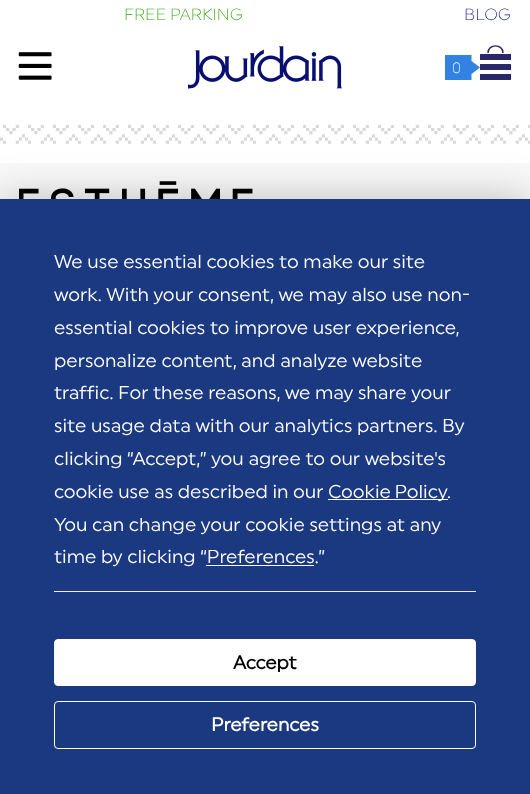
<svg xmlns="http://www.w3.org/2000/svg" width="530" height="794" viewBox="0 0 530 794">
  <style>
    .t1 { font: 300 16.25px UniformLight; fill: #2fa108; }
    .t2 { font: 300 16.25px UniformLight; fill: #090f71; }
    .t3 { font: 300 15px UniformLight; fill: #fff; }
    .t4 { font: 18.75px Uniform; fill: #fff; }
    .t5 { font: bold 18.75px Uniform; fill: #000; }
    .t6 { font: bold 18.75px Uniform; fill: #fff; }
  </style>
  <rect width="100%" height="100%" fill="#fff"/>
  <text x="124" y="20" class="t1">FREE PARKING</text>
  <text x="464" y="20" class="t2">BLOG</text>
  <image x="18" y="52" width="34" height="28" href="images/1.png"/>
  <image x="188" y="46" width="154" height="43" href="images/2.png"/>
  <path d="M488 53C488 43.5 503 43.5 503 53" fill="none" stroke="#272769" stroke-width="1.4"/>
  <rect x="480" y="54" width="31" height="6" fill="#272769"/>
  <path d="M471.5 55H445V80H471.5V74L480 67.5L471.5 61Z" fill="#3282e3"/>
  <text x="452" y="73" class="t3">0</text>
  <rect x="480" y="64" width="31" height="6" fill="#272769"/>
  <rect x="480" y="74" width="31" height="6" fill="#272769"/>
  <image x="0" y="125" width="530" height="19" href="images/3.png"/>
  <rect x="0" y="163" width="530" height="36" fill="#f9f9f9"/>
  <image x="19" y="181" width="234" height="18" href="images/4.png"/>
  <rect x="0" y="199" width="530" height="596" fill="#00000040" filter="blur(22px)"/>
  <rect x="0" y="199" width="530" height="595" fill="#1b3981"/>
  <text x="54" y="268" class="t4">We use essential cookies to make our site</text>
  <text x="54" y="301" class="t4">work. With your consent, we may also use non-</text>
  <text x="54" y="334" class="t4">essential cookies to improve user experience,</text>
  <text x="54" y="367" class="t4">personalize content, and analyze website</text>
  <text x="54" y="399" class="t4">traffic. For these reasons, we may share your</text>
  <text x="54" y="432" class="t4">site usage data with our analytics partners. By</text>
  <text x="54" y="465" class="t4">clicking “Accept,” you agree to our website's</text>
  <text x="54" y="498" class="t4">cookie use as described in our</text>
  <rect x="328" y="499" width="120" height="1" fill="#fff"/>
  <text x="328" y="498" word-spacing="-1" class="t4">Cookie Policy</text>
  <text x="447" y="498" class="t4">.</text>
  <text x="54" y="531" class="t4">You can change your cookie settings at any</text>
  <text x="54" y="563" class="t4">time by clicking “Preferences.”</text>
  <rect x="206" y="565" width="108" height="1" fill="#fff"/>
  <rect x="54" y="591" width="422" height="1" fill="#ededef"/>
  <rect x="54.5" y="639.5" width="421" height="46" rx="3.5" fill="#fff" stroke="#fff"/>
  <text x="233" y="669" class="t5">Accept</text>
  <rect x="54.5" y="701.5" width="421" height="47" rx="3.5" fill="none" stroke="#fff"/>
  <text x="211" y="731" class="t6">Preferences</text>
</svg>
